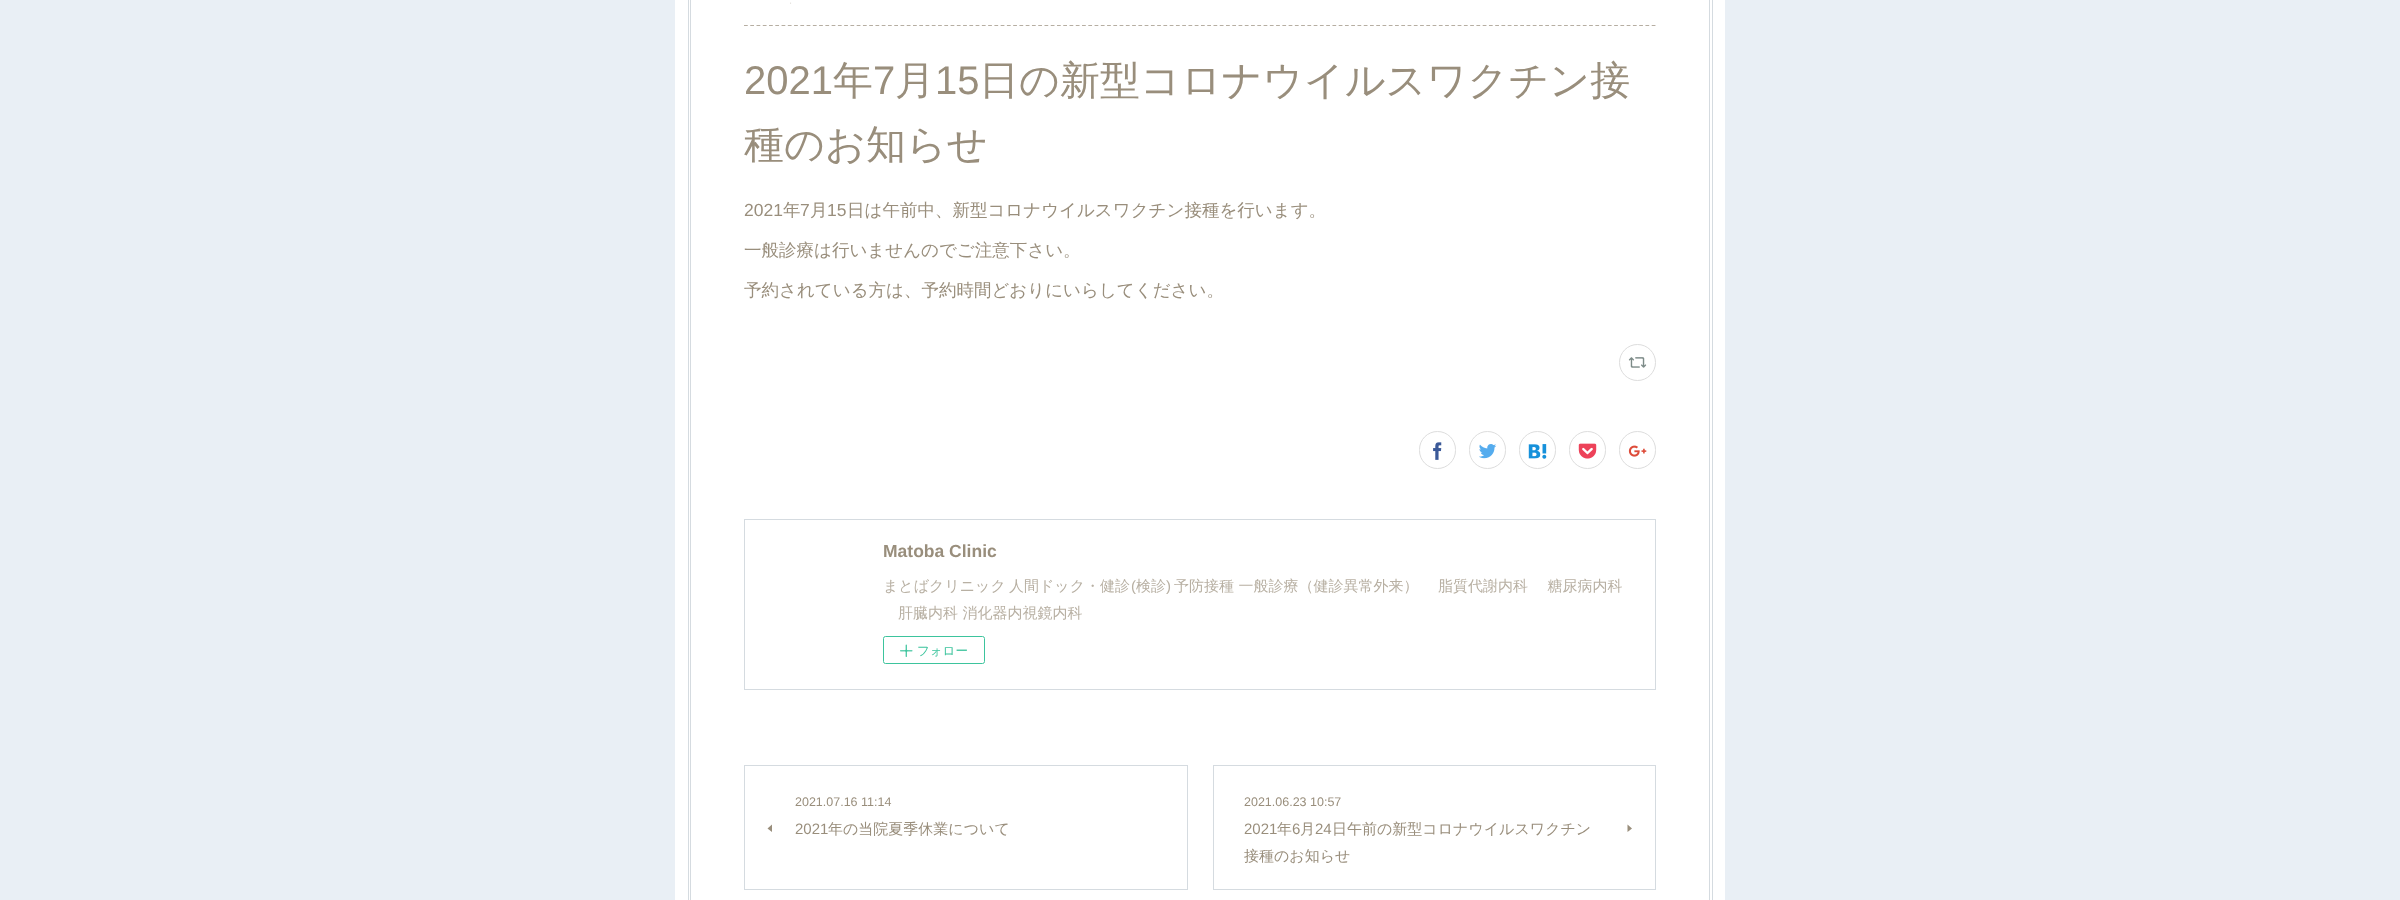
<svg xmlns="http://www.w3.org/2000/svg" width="2400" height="900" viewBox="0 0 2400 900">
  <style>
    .t1 { font: 100 22px Raleway; fill: #ccc7be; }
    .t2 { font: 40px Liberation Sans; fill: #998e7c; }
    .t3 { font: 500 40px WenQuanYi Zen Hei; fill: #998e7c; }
    .t4 { font: 17.5px Liberation Sans; fill: #998e7c; }
    .t5 { font: 500 17.5px WenQuanYi Zen Hei; fill: #998e7c; }
    .t6 { font: bold 17.5px Liberation Sans; fill: #998e7c; }
    .t7 { font: 500 15px WenQuanYi Zen Hei; fill: #b8b0a3; }
    .t8 { font: 15px Liberation Sans; fill: #b8b0a3; }
    .t9 { font: 500 12.5px WenQuanYi Zen Hei; fill: #3dc49d; }
    .t10 { font: 12.5px Liberation Sans; fill: #998e7c; }
    .t11 { font: 15px Liberation Sans; fill: #998e7c; }
    .t12 { font: 500 15px WenQuanYi Zen Hei; fill: #998e7c; }
  </style>
  <rect width="100%" height="100%" fill="#e9eff5"/>
  <rect x="675" y="0" width="1050" height="900" fill="#fff"/>
  <rect x="688.5" y="-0.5" width="1024" height="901" fill="none" stroke="#d5dbe0"/>
  <rect x="690.5" y="-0.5" width="1019" height="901" fill="none" stroke="#d5dbe0"/>
  <text x="789" y="4" class="t1">.</text>
  <path d="M744 25.5H1656" fill="none" stroke="#b6aea2" stroke-width="1.2" stroke-dasharray="3.75 2.51"/>
  <text x="744" y="94" class="t2">2021</text>
  <text x="833" y="94" class="t3">年</text>
  <text x="873" y="94" class="t2">7</text>
  <text x="895" y="94" class="t3">月</text>
  <text x="935" y="94" class="t2">15</text>
  <text x="979" y="94" class="t3">日の新型コロナウイルスワクチン接</text>
  <text x="744" y="158" class="t3">種のお知らせ</text>
  <text x="744" y="216" class="t4">2021</text>
  <text x="783" y="216" class="t5">年</text>
  <text x="800" y="216" class="t4">7</text>
  <text x="810" y="216" class="t5">月</text>
  <text x="827" y="216" class="t4">15</text>
  <text x="847" y="216" class="t5">日は午前中、新型コロナウイルスワクチン接種を行います。</text>
  <text x="744" y="256" class="t5">一般診療は行いませんのでご注意下さい。</text>
  <text x="744" y="296" class="t5">予約されている方は、予約時間どおりにいらしてください。</text>
  <circle cx="1637.5" cy="362.5" r="18" fill="none" stroke="#ddd"/>
  <image x="1628" y="357" width="19" height="11" href="images/1.png"/>
  <rect x="1419.5" y="431.5" width="36" height="37" rx="18" fill="none" stroke="#ddd"/>
  <image x="1433" y="442" width="9" height="18" href="images/2.png"/>
  <rect x="1469.5" y="431.5" width="36" height="37" rx="18" fill="none" stroke="#ddd"/>
  <image x="1479" y="444" width="18" height="15" href="images/3.png"/>
  <rect x="1519.5" y="431.5" width="36" height="37" rx="18" fill="none" stroke="#ddd"/>
  <image x="1528" y="444" width="19" height="15" href="images/4.png"/>
  <rect x="1569.5" y="431.5" width="36" height="37" rx="18" fill="none" stroke="#ddd"/>
  <image x="1578" y="443" width="19" height="16" href="images/5.png"/>
  <rect x="1619.5" y="431.5" width="36" height="37" rx="18" fill="none" stroke="#ddd"/>
  <image x="1628" y="445" width="19" height="12" href="images/6.png"/>
  <rect x="744.5" y="519.5" width="911" height="170" fill="none" stroke="#d5dbe0"/>
  <text x="883" y="557" class="t6">Matoba Clinic</text>
  <text x="883" y="591" class="t7">まとばクリニック</text>
  <text x="1009" y="591" class="t7">人間ドック・健診</text>
  <text x="1131" y="591" class="t8">(</text>
  <text x="1136" y="591" class="t7">検診</text>
  <text x="1166" y="591" class="t8">)</text>
  <text x="1174" y="591" class="t7">予防接種 一般診療（健診異常外来） 　脂質代謝内科 　糖尿病内科</text>
  <text x="898" y="618" class="t7">肝臓内科 消化器内視鏡内科</text>
  <rect x="883.5" y="636.5" width="101" height="27" rx="2" fill="none" stroke="#3dc49d"/>
  <image x="900" y="644" width="13" height="13" href="images/7.png"/>
  <text x="917" y="655" class="t9">フォロー</text>
  <rect x="744.5" y="765.5" width="443" height="124" fill="none" stroke="#d5dbe0"/>
  <text x="795" y="806" class="t10">2021.07.16 11:14</text>
  <path d="M772 832V824.5L767.5 828.5Z" fill="#998e7c"/>
  <text x="795" y="834" class="t11">2021</text>
  <text x="828" y="834" class="t12">年の当院夏季休業について</text>
  <rect x="1213.5" y="765.5" width="442" height="124" fill="none" stroke="#d5dbe0"/>
  <text x="1244" y="806" class="t10">2021.06.23 10:57</text>
  <text x="1244" y="834" class="t11">2021</text>
  <text x="1277" y="834" class="t12">年</text>
  <text x="1292" y="834" class="t11">6</text>
  <text x="1300" y="834" class="t12">月</text>
  <text x="1315" y="834" class="t11">24</text>
  <text x="1332" y="834" class="t12">日午前の新型コロナウイルスワクチン</text>
  <text x="1244" y="861" class="t12">接種のお知らせ</text>
  <path d="M1627.5 824.5V832L1632 828.5Z" fill="#998e7c"/>
</svg>
